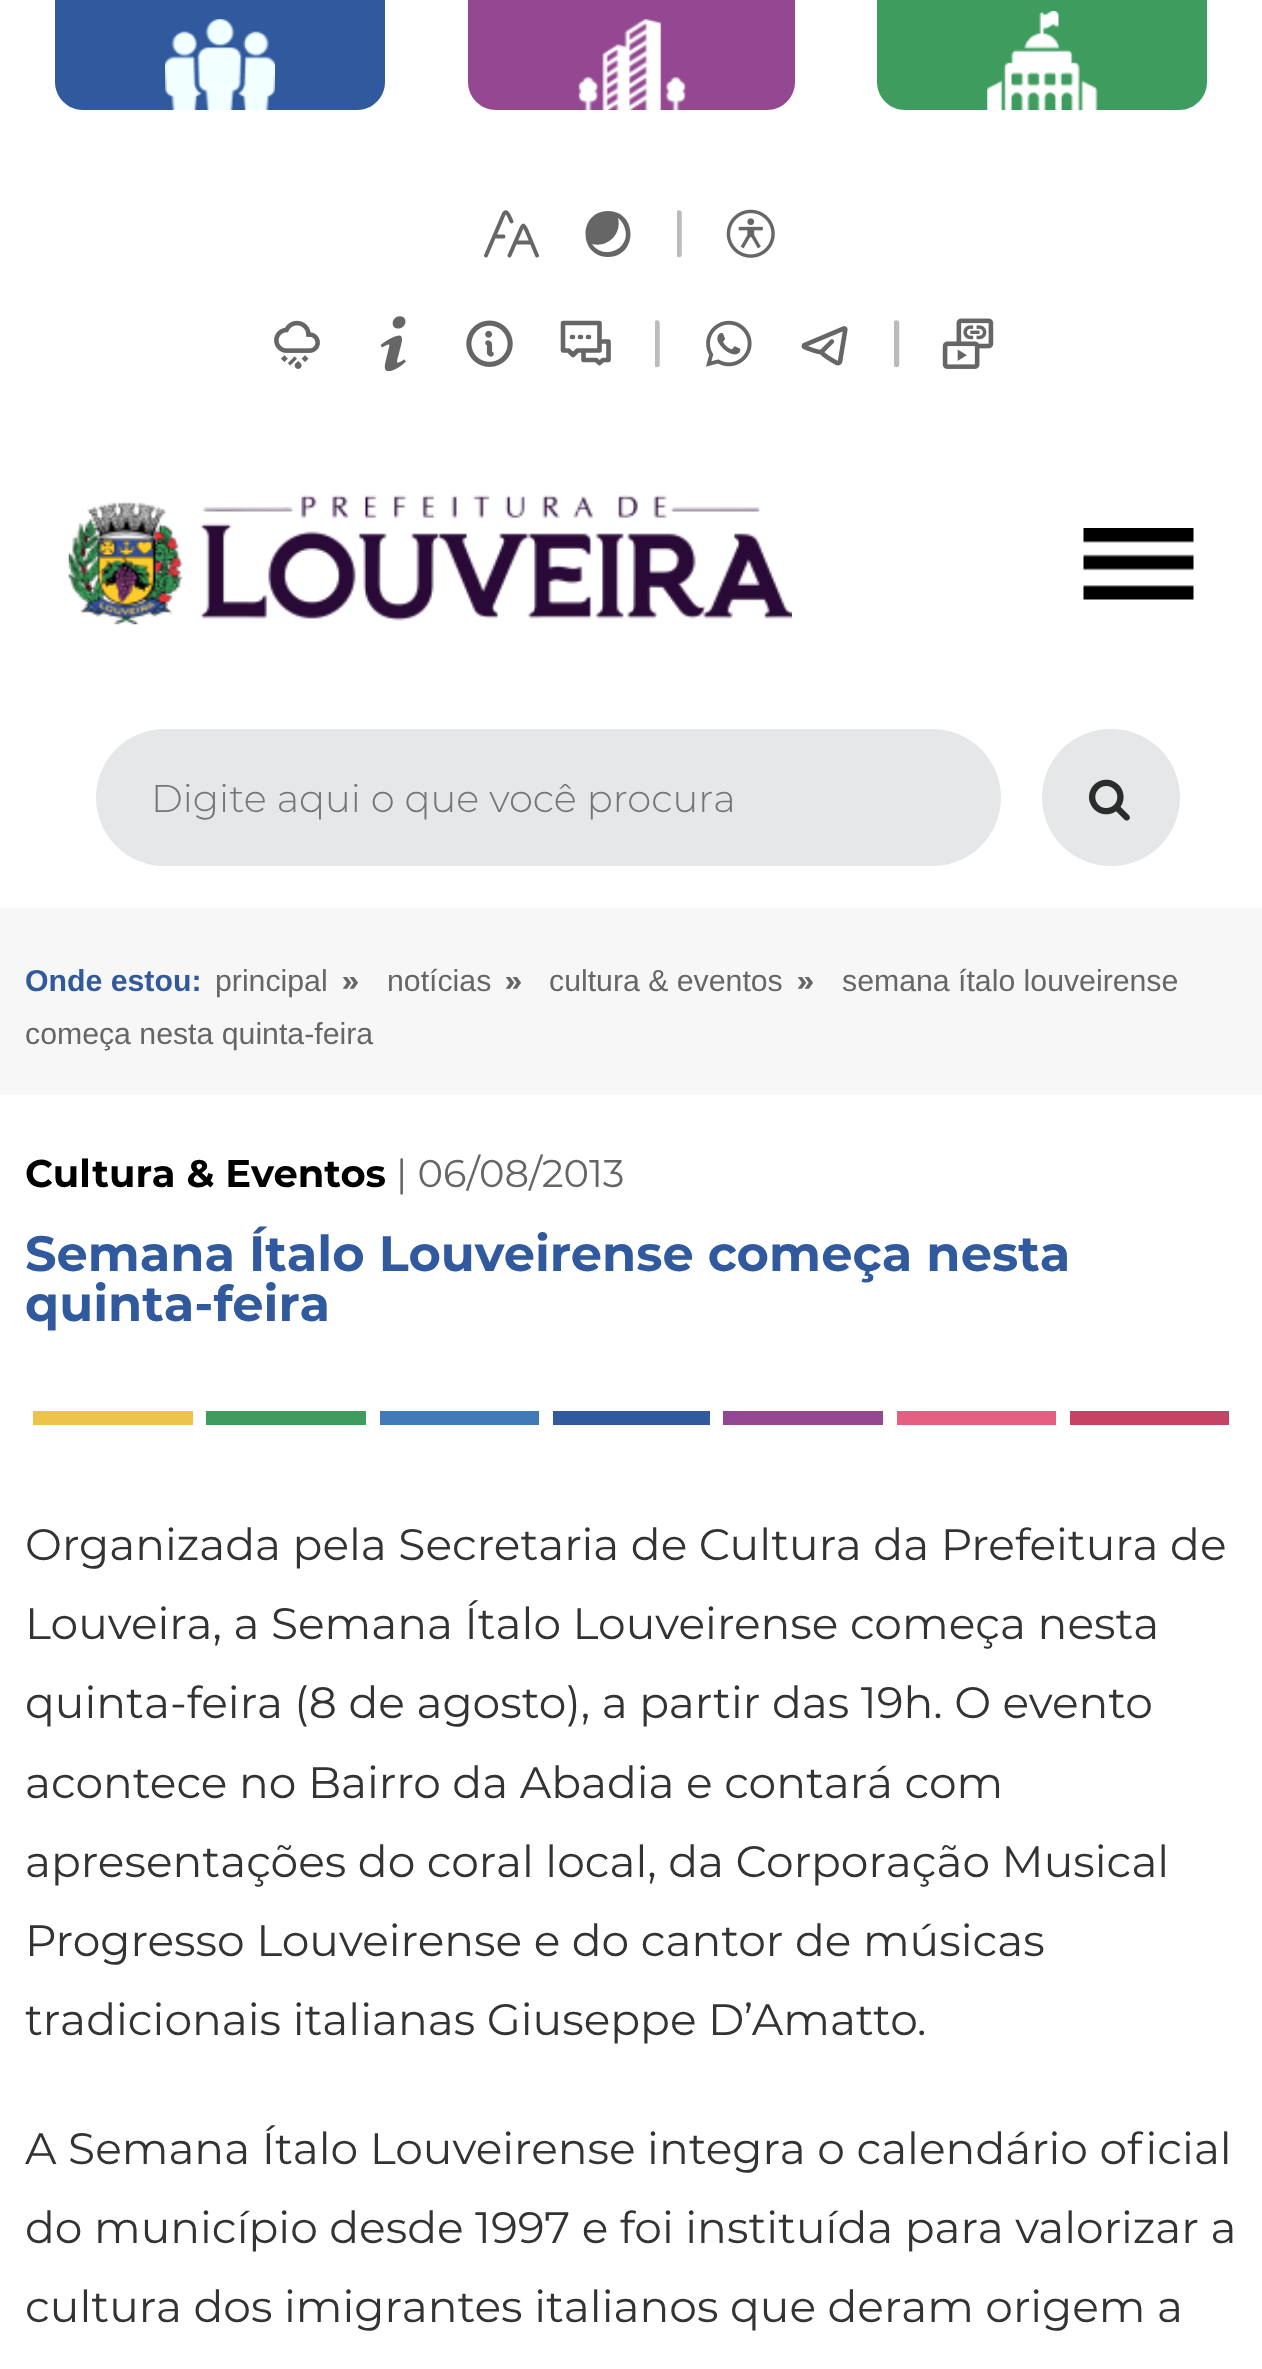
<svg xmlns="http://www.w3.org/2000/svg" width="1262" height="2369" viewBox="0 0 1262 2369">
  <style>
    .t1 { font: 300 38.5px Montserrat; fill: #757575; }
    .t2 { font: bold 30.25px Liberation Sans; fill: #31599e; }
    .t3 { font: 30.25px Liberation Sans; fill: #666; }
    .t4 { font: bold 30.25px Montserrat; fill: #666; }
    .t5 { font: bold 38.5px Montserrat; fill: #000; }
    .t6 { font: 38.5px Montserrat; fill: #666; }
    .t7 { font: bold 49.5px Montserrat; fill: #31599e; }
    .t8 { font: 44px Montserrat; fill: #333; }
  </style>
  <defs>
    <clipPath id="clip1"><rect x="677" y="209" width="6" height="50"/></clipPath>
    <clipPath id="clip2"><rect x="655" y="319" width="6" height="50"/></clipPath>
    <clipPath id="clip3"><rect x="894" y="319" width="6" height="50"/></clipPath>
  </defs>
  <rect width="100%" height="100%" fill="#fff"/>
  <path d="M55 0H385V82C385 97.5 372.5 110 357 110H83C67.5 110 55 97.5 55 82Z" fill="#31599e"/>
  <image x="165" y="19" width="110" height="91" href="images/1.png"/>
  <path d="M468 0H795V82C795 97.5 782.5 110 767 110H496C480.5 110 468 97.5 468 82Z" fill="#944892"/>
  <image x="578" y="19" width="109" height="91" href="images/2.png"/>
  <path d="M877 0H1207V82C1207 97.5 1194.5 110 1179 110H905C889.5 110 877 97.5 877 82Z" fill="#3e9c5e"/>
  <image x="987" y="11" width="111" height="99" href="images/3.png"/>
  <path d="M509.5 255.5L520 231.5C523 223.5 523.5 223.5 527 231.5L537 255.5M515 242.5H531.5M486 255.5L504 213.5C507 209 509.5 217.5 511.5 221.5M494 236.5H503.5" fill="none" stroke="#666" stroke-width="3.9" stroke-linecap="round" stroke-linejoin="round"/>
  <path d="M608 257C578 257 578 211 608 211C638 211 638 257 608 257ZM592 244C604 261 631 249 625 229C624 225 622 221 618 218C622 234 608 248 592 244Z" fill="#666"/>
  <g clip-path="url(#clip1)">
    <path d="M679 213V254.5" fill="none" stroke="#bbb" stroke-width="5.5" stroke-linecap="round"/>
  </g>
  <image x="726" y="209" width="49" height="49" href="images/4.png"/>
  <image x="274" y="320" width="46" height="49" href="images/5.png"/>
  <image x="380" y="316" width="26" height="55" href="images/6.png"/>
  <image x="466" y="320" width="47" height="47" href="images/7.png"/>
  <path d="M596 360H583.5V350.5H599.5V341.5H608.5V360H603L599.5 363ZM563 323H599.5V350.5H577.5L573 355L568.5 350.5H563Z" fill="none" stroke="#666" stroke-width="4.6" stroke-linecap="round" stroke-linejoin="round"/>
  <path d="M580 337H581M588 337H589M572 337H573" fill="none" stroke="#666" stroke-width="4.6" stroke-linecap="round"/>
  <g clip-path="url(#clip2)">
    <path d="M657 323V364.5" fill="none" stroke="#bbb" stroke-width="5.5" stroke-linecap="round"/>
  </g>
  <image x="706" y="320" width="46" height="47" href="images/8.png"/>
  <image x="801" y="326" width="47" height="40" href="images/9.png"/>
  <g clip-path="url(#clip3)">
    <path d="M896.5 323V364.5" fill="none" stroke="#bbb" stroke-width="5.5" stroke-linecap="round"/>
  </g>
  <image x="942" y="318" width="52" height="51" href="images/10.png"/>
  <image x="68" y="495" width="724" height="130" href="images/11.png"/>
  <image x="1083" y="528" width="111" height="72" href="images/12.png"/>
  <rect x="96" y="729" width="905" height="137" rx="68.5" fill="#e6e7e8"/>
  <text x="151" y="812" class="t1">Digite aqui o que você procura</text>
  <rect x="1042" y="729" width="138" height="137" rx="68.5" fill="#e6e7e8"/>
  <image x="1089" y="779" width="41" height="42" href="images/13.png"/>
  <rect x="0" y="908" width="1262" height="187" fill="#f7f7f7"/>
  <text x="25" y="991" class="t2">Onde estou:</text>
  <text x="215" y="991" class="t3">principal</text>
  <text x="342" y="991" class="t4">»</text>
  <text x="387" y="991" class="t3">notícias</text>
  <text x="505" y="991" class="t4">»</text>
  <text x="549" y="991" class="t3">cultura &amp; eventos</text>
  <text x="797" y="991" class="t4">»</text>
  <text x="842" y="991" class="t3">semana ítalo louveirense</text>
  <text x="25" y="1044" class="t3">começa nesta quinta-feira</text>
  <text x="25" y="1187" class="t5">Cultura &amp; Eventos</text>
  <text x="396" y="1187" class="t6">| 06/08/2013</text>
  <text x="25" y="1271" class="t7">Semana Ítalo Louveirense começa nesta</text>
  <text x="25" y="1321" class="t7">quinta-feira</text>
  <rect x="33" y="1411" width="160" height="14" fill="#ecc44a"/>
  <rect x="206" y="1411" width="160" height="14" fill="#3e9c5e"/>
  <rect x="380" y="1411" width="159" height="14" fill="#407ab9"/>
  <rect x="553" y="1411" width="157" height="14" fill="#31599e"/>
  <rect x="723" y="1411" width="160" height="14" fill="#944892"/>
  <rect x="897" y="1411" width="159" height="14" fill="#e45f82"/>
  <rect x="1070" y="1411" width="159" height="14" fill="#c54365"/>
  <text x="25" y="1560" class="t8">Organizada pela Secretaria de Cultura da Prefeitura de</text>
  <text x="25" y="1639" class="t8">Louveira, a Semana Ítalo Louveirense começa nesta</text>
  <text x="25" y="1718" class="t8">quinta-feira (8 de agosto), a partir das 19h. O evento</text>
  <text x="25" y="1798" class="t8">acontece no Bairro da Abadia e contará com</text>
  <text x="25" y="1877" class="t8">apresentações do coral local, da Corporação Musical</text>
  <text x="25" y="1956" class="t8">Progresso Louveirense e do cantor de músicas</text>
  <text x="25" y="2035" class="t8">tradicionais italianas Giuseppe D’Amatto.</text>
  <text x="25" y="2164" class="t8">A Semana Ítalo Louveirense integra o calendário oficial</text>
  <text x="25" y="2243" class="t8">do município desde 1997 e foi instituída para valorizar a</text>
  <text x="25" y="2322" class="t8">cultura dos imigrantes italianos que deram origem a</text>
</svg>
